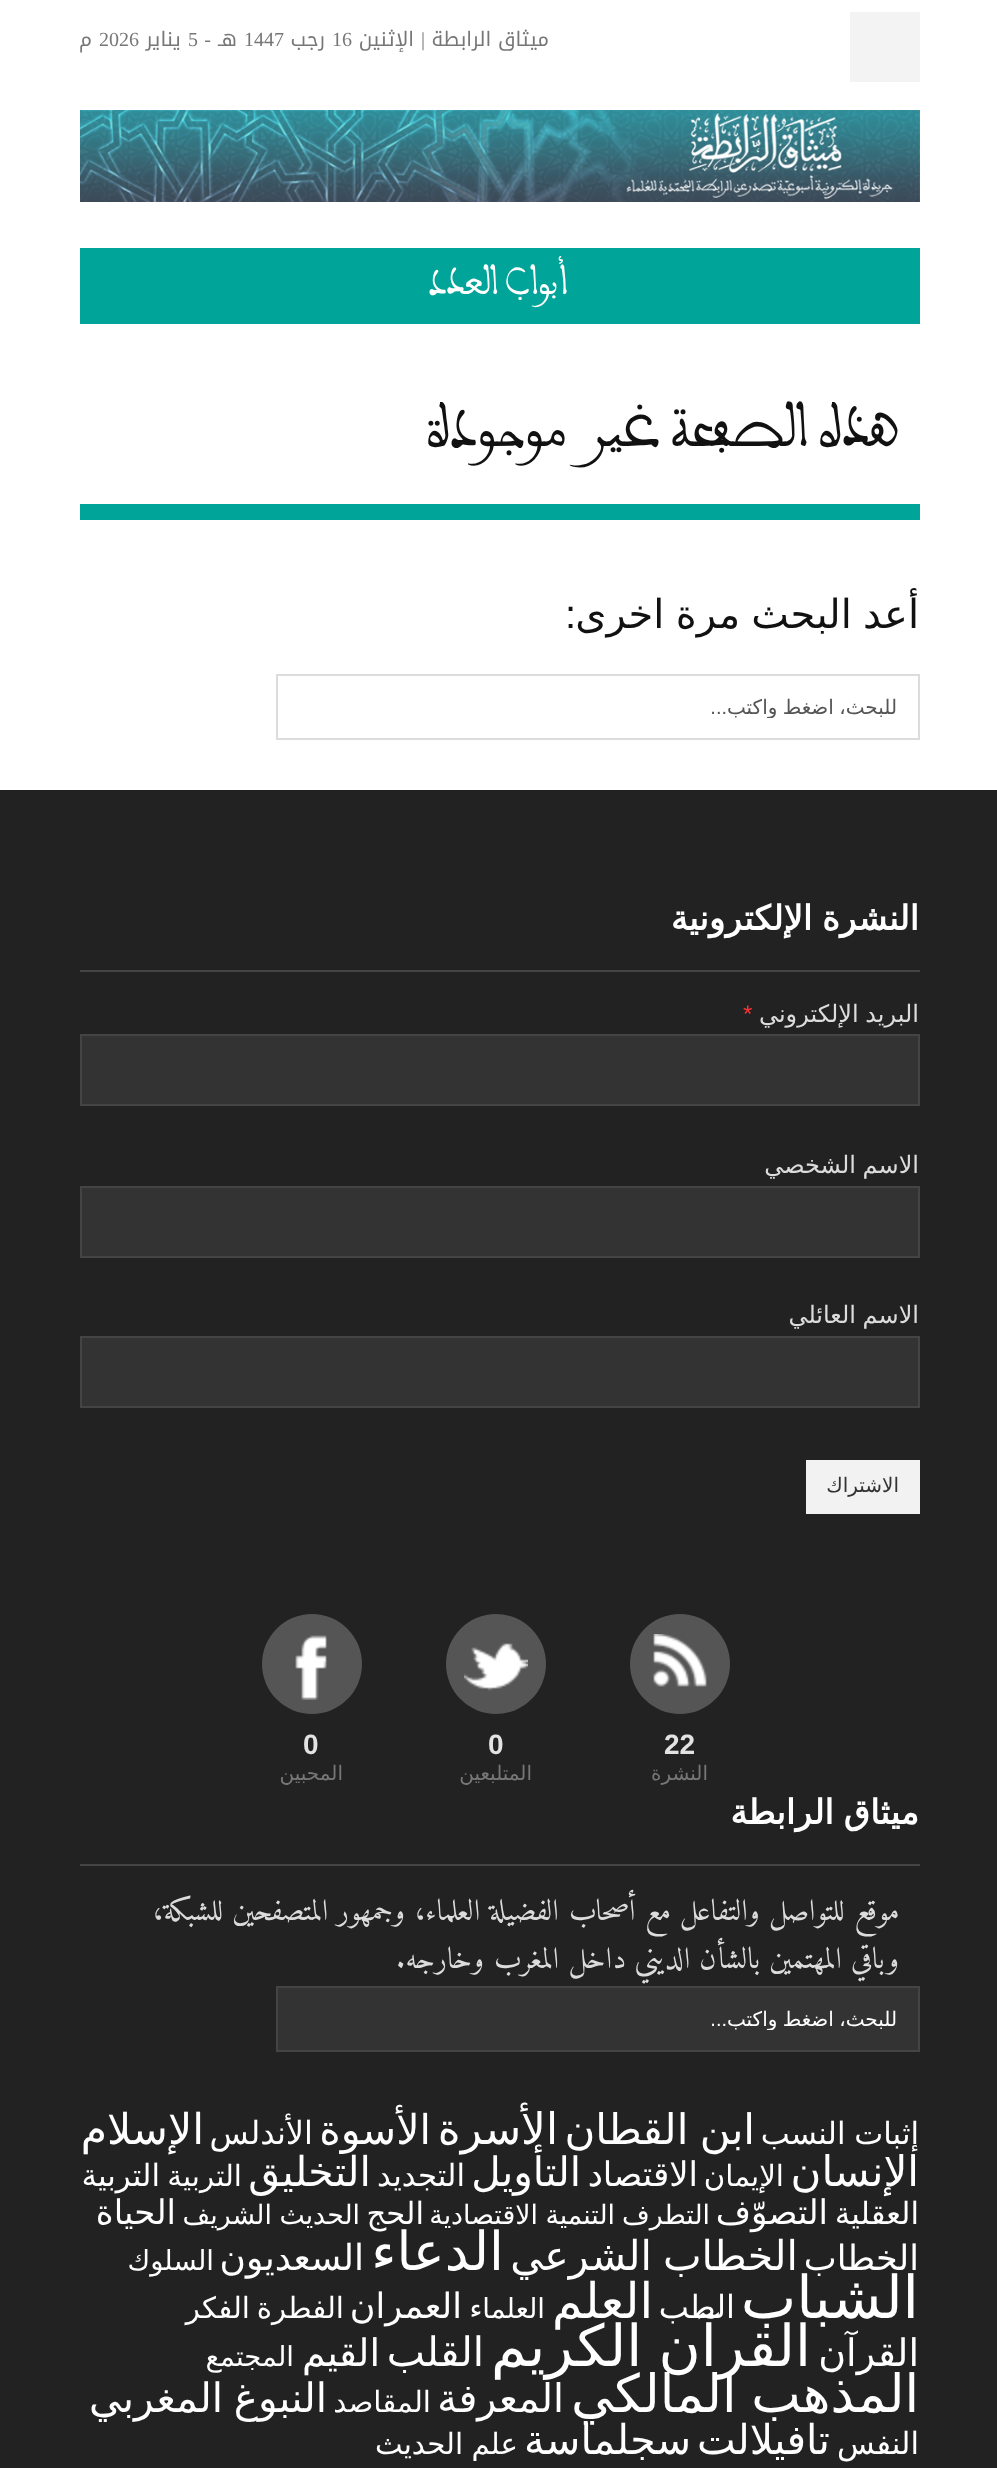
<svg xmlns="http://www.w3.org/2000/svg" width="997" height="2468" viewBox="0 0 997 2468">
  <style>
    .t1 { font: 20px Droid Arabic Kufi; direction: rtl; fill: #777; }
    .t2 { font: 20px Liberation Serif; direction: rtl; fill: #777; }
    .t3 { font: 20px Liberation Serif; fill: #777; }
    .t4 { font: 36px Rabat; direction: rtl; fill: #fff; }
    .t5 { font: 54px Rabat; direction: rtl; fill: #111; }
    .t6 { font: 40px DejaVu Sans; direction: rtl; fill: #111; }
    .t7 { font: 40px Liberation Sans; direction: rtl; fill: #111; }
    .t8 { font: 20px DejaVu Sans; direction: rtl; fill: #555; }
    .t9 { font: 20px Liberation Sans; direction: rtl; fill: #555; }
    .t10 { font: bold 34px DejaVu Sans; direction: rtl; fill: #fff; }
    .t11 { font: 24px DejaVu Sans; direction: rtl; fill: #dcdcdc; }
    .t12 { font: 24px Liberation Sans; fill: #f33; }
    .t13 { font: 20px DejaVu Sans; direction: rtl; fill: #333; }
    .t14 { font: bold 28px Liberation Sans; fill: #e3e3e3; }
    .t15 { font: 20px DejaVu Sans; direction: rtl; fill: #777; }
    .t16 { font: 30px Amiri; direction: rtl; fill: #dcdcdc; }
    .t17 { font: 20px DejaVu Sans; direction: rtl; fill: #fff; }
    .t18 { font: 20px Liberation Sans; direction: rtl; fill: #fff; }
    .t19 { font: 30.75px DejaVu Sans; direction: rtl; fill: #fff; }
    .t20 { font: 42px DejaVu Sans; direction: rtl; fill: #fff; }
    .t21 { font: 43.5px DejaVu Sans; direction: rtl; fill: #fff; }
    .t22 { font: 41px DejaVu Sans; direction: rtl; fill: #fff; }
    .t23 { font: 32px DejaVu Sans; direction: rtl; fill: #fff; }
    .t24 { font: 42.5px DejaVu Sans; direction: rtl; fill: #fff; }
    .t25 { font: 29.25px DejaVu Sans; direction: rtl; fill: #fff; }
    .t26 { font: 34px DejaVu Sans; direction: rtl; fill: #fff; }
    .t27 { font: 40.5px DejaVu Sans; direction: rtl; fill: #fff; }
    .t28 { font: 26.75px DejaVu Sans; direction: rtl; fill: #fff; }
    .t29 { font: 35px DejaVu Sans; direction: rtl; fill: #fff; }
    .t30 { font: 53.5px DejaVu Sans; direction: rtl; fill: #fff; }
    .t31 { font: 36px DejaVu Sans; direction: rtl; fill: #fff; }
    .t32 { font: 27.5px DejaVu Sans; direction: rtl; fill: #fff; }
    .t33 { font: 59px DejaVu Sans; direction: rtl; fill: #fff; }
    .t34 { font: 49px DejaVu Sans; direction: rtl; fill: #fff; }
    .t35 { font: 38px DejaVu Sans; direction: rtl; fill: #fff; }
    .t36 { font: 57.5px DejaVu Sans; direction: rtl; fill: #fff; }
    .t37 { font: 52.5px DejaVu Sans; direction: rtl; fill: #fff; }
    .t38 { font: 39.5px DejaVu Sans; direction: rtl; fill: #fff; }
  </style>
  <defs>
    <clipPath id="clip1"><rect x="298" y="696" width="600" height="22"/></clipPath>
    <clipPath id="clip2"><rect x="298" y="2008" width="600" height="22"/></clipPath>
  </defs>
  <rect width="100%" height="100%" fill="#fff"/>
  <rect x="850" y="12" width="70" height="70" fill="#f3f3f3"/>
  <text x="549" y="46" class="t1">ميثاق الرابطة</text>
  <text x="425" y="46" class="t2">|</text>
  <text x="414" y="46" class="t1">الإثنين</text>
  <text x="332" y="46" class="t3">16</text>
  <text x="325" y="46" class="t1">رجب</text>
  <text x="244" y="46" class="t3">1447</text>
  <text x="237" y="46" class="t1">هـ</text>
  <text x="211" y="46" class="t2">-</text>
  <text x="188" y="46" class="t3">5</text>
  <text x="181" y="46" class="t1">يناير</text>
  <text x="99" y="46" class="t3">2026</text>
  <text x="92" y="46" class="t1">م</text>
  <image x="80" y="110" width="840" height="92" href="images/1.png"/>
  <rect x="80" y="248" width="840" height="76" fill="#00a498"/>
  <text x="568" y="294" class="t4">أبواب العدد</text>
  <text x="899" y="446" class="t5">هذه الصفحة غير موجودة</text>
  <rect x="80" y="504" width="840" height="16" fill="#00a498"/>
  <text x="919" y="628" word-spacing="-1.5" class="t6">أعد البحث مرة اخرى</text>
  <text x="576" y="628" class="t7">:</text>
  <rect x="277" y="675" width="642" height="64" fill="none" stroke="#dcdcdc" stroke-width="2"/>
  <g clip-path="url(#clip1)">
    <text x="897" y="714" word-spacing="-1" class="t8">للبحث، اضغط واكتب</text>
  </g>
  <text x="727" y="714" class="t9">...</text>
  <rect x="0" y="790" width="997" height="1678" fill="#222"/>
  <rect x="80" y="970" width="840" height="2" fill="#444"/>
  <text x="919" y="930" word-spacing="-1" class="t10">النشرة الإلكترونية</text>
  <text x="919" y="1022" word-spacing="-1" class="t11">البريد الإلكتروني</text>
  <text x="743" y="1022" class="t12">*</text>
  <rect x="81" y="1035" width="838" height="70" fill="#333" stroke="#444" stroke-width="2"/>
  <text x="919" y="1173" word-spacing="-1" class="t11">الاسم الشخصي</text>
  <rect x="81" y="1187" width="838" height="70" fill="#333" stroke="#444" stroke-width="2"/>
  <text x="919" y="1323" word-spacing="-1" class="t11">الاسم العائلي</text>
  <rect x="81" y="1337" width="838" height="70" fill="#333" stroke="#444" stroke-width="2"/>
  <rect x="806" y="1460" width="114" height="54" fill="#f2f2f2"/>
  <text x="899" y="1492" class="t13">الاشتراك</text>
  <circle cx="680" cy="1664" r="50" fill="#555"/>
  <image x="653" y="1634" width="54" height="53" href="images/2.png"/>
  <text x="664" y="1754" class="t14">22</text>
  <text x="708" y="1780" class="t15">النشرة</text>
  <circle cx="496" cy="1664" r="50" fill="#555"/>
  <image x="464" y="1643" width="64" height="48" href="images/3.png"/>
  <text x="488" y="1754" class="t14">0</text>
  <text x="532" y="1780" class="t15">المتلبعين</text>
  <circle cx="312" cy="1664" r="50" fill="#555"/>
  <image x="295" y="1635" width="32" height="65" href="images/4.png"/>
  <text x="303" y="1754" class="t14">0</text>
  <text x="343" y="1780" class="t15">المحبين</text>
  <rect x="80" y="1864" width="840" height="2" fill="#444"/>
  <text x="919" y="1824" word-spacing="-1" class="t10">ميثاق الرابطة</text>
  <text x="899" y="1920" class="t16">موقع للتواصل والتفاعل مع أصحاب الفضيلة العلماء، وجمهور المتصفحين للشبكة،</text>
  <text x="899" y="1968" class="t16">وباقي المهتمين بالشأن الديني داخل المغرب وخارجه.</text>
  <rect x="277" y="1987" width="642" height="64" fill="#333" stroke="#444" stroke-width="2"/>
  <g clip-path="url(#clip2)">
    <text x="897" y="2026" word-spacing="-1" class="t17">للبحث، اضغط واكتب</text>
  </g>
  <text x="727" y="2026" class="t18">...</text>
  <text x="919" y="2144" word-spacing="-1" class="t19">إثبات النسب</text>
  <text x="755" y="2144" word-spacing="-2" class="t20">ابن القطان</text>
  <text x="558" y="2144" class="t21">الأسرة</text>
  <text x="431" y="2144" class="t22">الأسوة</text>
  <text x="313" y="2144" class="t23">الأندلس</text>
  <text x="204" y="2144" class="t24">الإسلام</text>
  <text x="919" y="2186" class="t20">الإنسان</text>
  <text x="784" y="2186" class="t25">الإيمان</text>
  <text x="698" y="2186" class="t26">الاقتصاد</text>
  <text x="581" y="2186" class="t27">التأويل</text>
  <text x="465" y="2186" class="t19">التجديد</text>
  <text x="371" y="2186" class="t22">التخليق</text>
  <text x="242" y="2186" class="t25">التربية</text>
  <text x="160" y="2186" class="t19">التربية</text>
  <text x="919" y="2224" class="t19">العقلية</text>
  <text x="828" y="2224" class="t26">التصوّف</text>
  <text x="710" y="2224" class="t28">التطرف</text>
  <text x="615" y="2224" word-spacing="-1" class="t28">التنمية الاقتصادية</text>
  <text x="424" y="2224" class="t19">الحج</text>
  <text x="360" y="2224" word-spacing="-1" class="t28">الحديث الشريف</text>
  <text x="176" y="2224" class="t26">الحياة</text>
  <text x="919" y="2270" class="t29">الخطاب</text>
  <text x="798" y="2270" word-spacing="-2" class="t22">الخطاب الشرعي</text>
  <text x="504" y="2270" class="t30">الدعاء</text>
  <text x="364" y="2270" class="t31">السعديون</text>
  <text x="214" y="2270" class="t32">السلوك</text>
  <text x="919" y="2318" class="t33">الشباب</text>
  <text x="735" y="2318" class="t23">الطب</text>
  <text x="653" y="2318" class="t34">العلم</text>
  <text x="545" y="2318" class="t32">العلماء</text>
  <text x="462" y="2318" class="t29">العمران</text>
  <text x="344" y="2318" class="t25">الفطرة</text>
  <text x="250" y="2318" class="t25">الفكر</text>
  <text x="919" y="2366" class="t35">القرآن</text>
  <text x="811" y="2366" word-spacing="-2" class="t36">القرآن الكريم</text>
  <text x="484" y="2366" class="t27">القلب</text>
  <text x="380" y="2366" class="t35">القيم</text>
  <text x="294" y="2366" class="t32">المجتمع</text>
  <text x="919" y="2412" word-spacing="-2" class="t37">المذهب المالكي</text>
  <text x="564" y="2412" class="t38">المعرفة</text>
  <text x="431" y="2412" class="t25">المقاصد</text>
  <text x="327" y="2412" word-spacing="-2" class="t27">النبوغ المغربي</text>
  <text x="919" y="2454" class="t19">النفس</text>
  <text x="830" y="2454" class="t22">تافيلالت</text>
  <text x="691" y="2454" class="t22">سجلماسة</text>
  <text x="518" y="2454" word-spacing="-1" class="t25">علم الحديث</text>
</svg>
